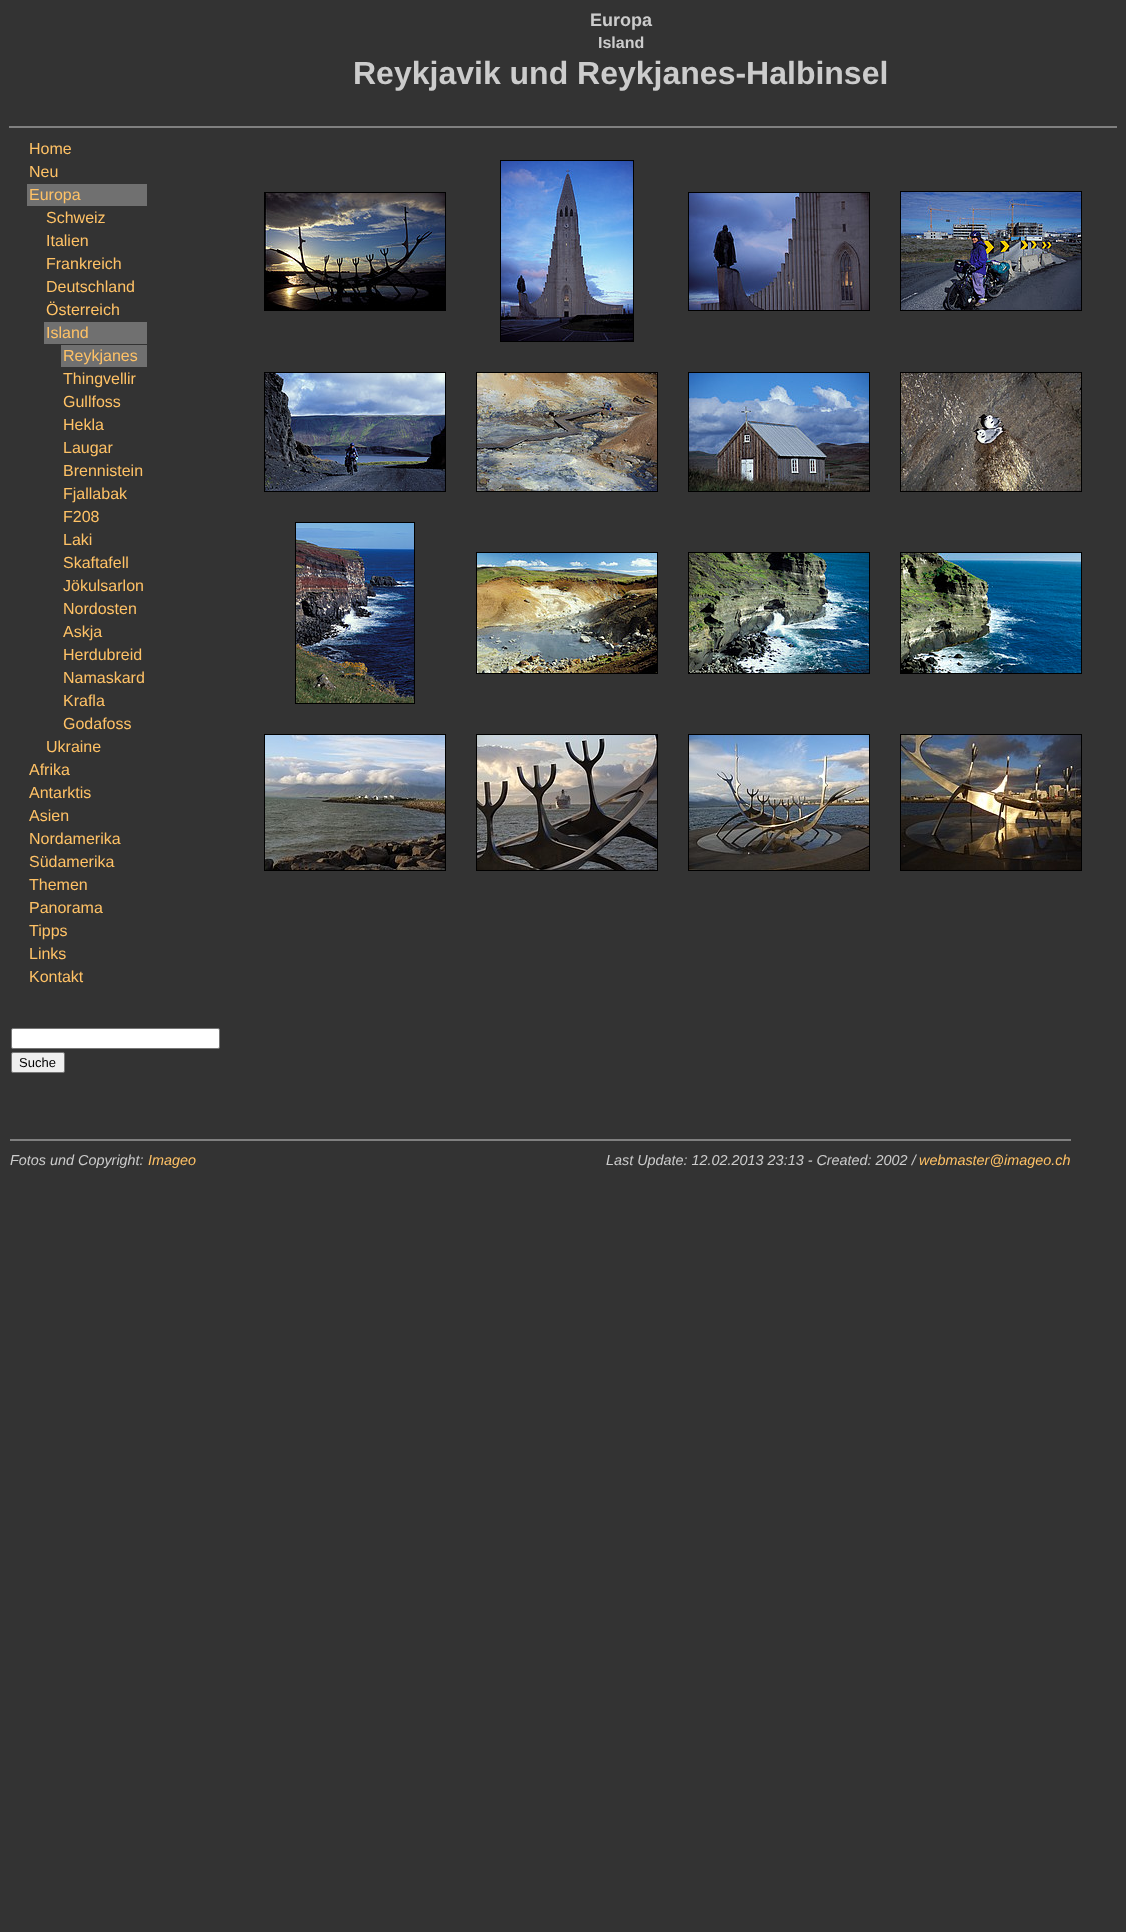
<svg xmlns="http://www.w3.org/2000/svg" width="1126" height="1932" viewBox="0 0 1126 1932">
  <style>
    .t1 { font: bold 18px Liberation Sans; fill: #ccc; }
    .t2 { font: bold 16px Liberation Sans; fill: #ccc; }
    .t3 { font: bold 32px Liberation Sans; fill: #ccc; }
    .t4 { font: 16px Liberation Sans; fill: #ffc266; }
    .t5 { font: 13px Liberation Sans; fill: #000; }
    .t6 { font: italic 14.4px Liberation Sans; fill: #ccc; }
    .t7 { font: italic 14.4px Liberation Sans; fill: #ffc266; }
  </style>
  <rect width="100%" height="100%" fill="#333"/>
  <text x="590" y="26" class="t1">Europa</text>
  <text x="598" y="48" class="t2">Island</text>
  <text x="353" y="84" class="t3">Reykjavik und Reykjanes-Halbinsel</text>
  <rect x="9" y="126" width="1108" height="2" fill="#808080"/>
  <text x="29" y="154" class="t4">Home</text>
  <text x="29" y="177" class="t4">Neu</text>
  <rect x="27" y="184" width="120" height="22" fill="#707070"/>
  <text x="29" y="200" class="t4">Europa</text>
  <text x="46" y="223" class="t4">Schweiz</text>
  <text x="46" y="246" class="t4">Italien</text>
  <text x="46" y="269" class="t4">Frankreich</text>
  <text x="46" y="292" class="t4">Deutschland</text>
  <text x="46" y="315" class="t4">Österreich</text>
  <rect x="44" y="322" width="103" height="22" fill="#707070"/>
  <text x="46" y="338" class="t4">Island</text>
  <rect x="61" y="345" width="86" height="22" fill="#707070"/>
  <text x="63" y="361" class="t4">Reykjanes</text>
  <text x="63" y="384" class="t4">Thingvellir</text>
  <text x="63" y="407" class="t4">Gullfoss</text>
  <text x="63" y="430" class="t4">Hekla</text>
  <text x="63" y="453" class="t4">Laugar</text>
  <text x="63" y="476" class="t4">Brennistein</text>
  <text x="63" y="499" class="t4">Fjallabak</text>
  <text x="63" y="522" class="t4">F208</text>
  <text x="63" y="545" class="t4">Laki</text>
  <text x="63" y="568" class="t4">Skaftafell</text>
  <text x="63" y="591" class="t4">Jökulsarlon</text>
  <text x="63" y="614" class="t4">Nordosten</text>
  <text x="63" y="637" class="t4">Askja</text>
  <text x="63" y="660" class="t4">Herdubreid</text>
  <text x="63" y="683" class="t4">Namaskard</text>
  <text x="63" y="706" class="t4">Krafla</text>
  <text x="63" y="729" class="t4">Godafoss</text>
  <text x="46" y="752" class="t4">Ukraine</text>
  <text x="29" y="775" class="t4">Afrika</text>
  <text x="29" y="798" class="t4">Antarktis</text>
  <text x="29" y="821" class="t4">Asien</text>
  <text x="29" y="844" class="t4">Nordamerika</text>
  <text x="29" y="867" class="t4">Südamerika</text>
  <text x="29" y="890" class="t4">Themen</text>
  <text x="29" y="913" class="t4">Panorama</text>
  <text x="29" y="936" class="t4">Tipps</text>
  <text x="29" y="959" class="t4">Links</text>
  <text x="29" y="982" class="t4">Kontakt</text>
  <rect x="11.5" y="1028.5" width="208" height="20" rx="1.5" fill="#fff" stroke="#767676"/>
  <rect x="11.5" y="1052.5" width="53" height="20" rx="1.5" fill="#efefef" stroke="#767676"/>
  <text x="19" y="1067" class="t5">Suche</text>
  <rect x="264.5" y="192.5" width="181" height="118" fill="none" stroke="#000"/>
  <image x="265" y="193" width="180" height="117" href="images/1.png"/>
  <rect x="500.5" y="160.5" width="133" height="181" fill="none" stroke="#000"/>
  <image x="501" y="161" width="132" height="180" href="images/2.png"/>
  <rect x="688.5" y="192.5" width="181" height="118" fill="none" stroke="#000"/>
  <image x="689" y="193" width="180" height="117" href="images/3.png"/>
  <rect x="900.5" y="191.5" width="181" height="119" fill="none" stroke="#000"/>
  <image x="901" y="192" width="180" height="118" href="images/4.png"/>
  <rect x="264.5" y="372.5" width="181" height="119" fill="none" stroke="#000"/>
  <image x="265" y="373" width="180" height="118" href="images/5.png"/>
  <rect x="476.5" y="372.5" width="181" height="119" fill="none" stroke="#000"/>
  <image x="477" y="373" width="180" height="118" href="images/6.png"/>
  <rect x="688.5" y="372.5" width="181" height="119" fill="none" stroke="#000"/>
  <image x="689" y="373" width="180" height="118" href="images/7.png"/>
  <rect x="900.5" y="372.5" width="181" height="119" fill="none" stroke="#000"/>
  <image x="901" y="373" width="180" height="118" href="images/8.png"/>
  <rect x="295.5" y="522.5" width="119" height="181" fill="none" stroke="#000"/>
  <image x="296" y="523" width="118" height="180" href="images/9.png"/>
  <rect x="476.5" y="552.5" width="181" height="121" fill="none" stroke="#000"/>
  <image x="477" y="553" width="180" height="120" href="images/10.png"/>
  <rect x="688.5" y="552.5" width="181" height="121" fill="none" stroke="#000"/>
  <image x="689" y="553" width="180" height="120" href="images/11.png"/>
  <rect x="900.5" y="552.5" width="181" height="121" fill="none" stroke="#000"/>
  <image x="901" y="553" width="180" height="120" href="images/12.png"/>
  <rect x="264.5" y="734.5" width="181" height="136" fill="none" stroke="#000"/>
  <image x="265" y="735" width="180" height="135" href="images/13.png"/>
  <rect x="476.5" y="734.5" width="181" height="136" fill="none" stroke="#000"/>
  <image x="477" y="735" width="180" height="135" href="images/14.png"/>
  <rect x="688.5" y="734.5" width="181" height="136" fill="none" stroke="#000"/>
  <image x="689" y="735" width="180" height="135" href="images/15.png"/>
  <rect x="900.5" y="734.5" width="181" height="136" fill="none" stroke="#000"/>
  <image x="901" y="735" width="180" height="135" href="images/16.png"/>
  <rect x="10" y="1139" width="1061" height="2" fill="#808080"/>
  <text x="10" y="1165" class="t6">Fotos und Copyright:</text>
  <text x="148" y="1165" class="t7">Imageo</text>
  <text x="606" y="1165" class="t6">Last Update: 12.02.2013 23:13 - Created: 2002 /</text>
  <text x="919" y="1165" class="t7">webmaster@imageo.ch</text>
</svg>
